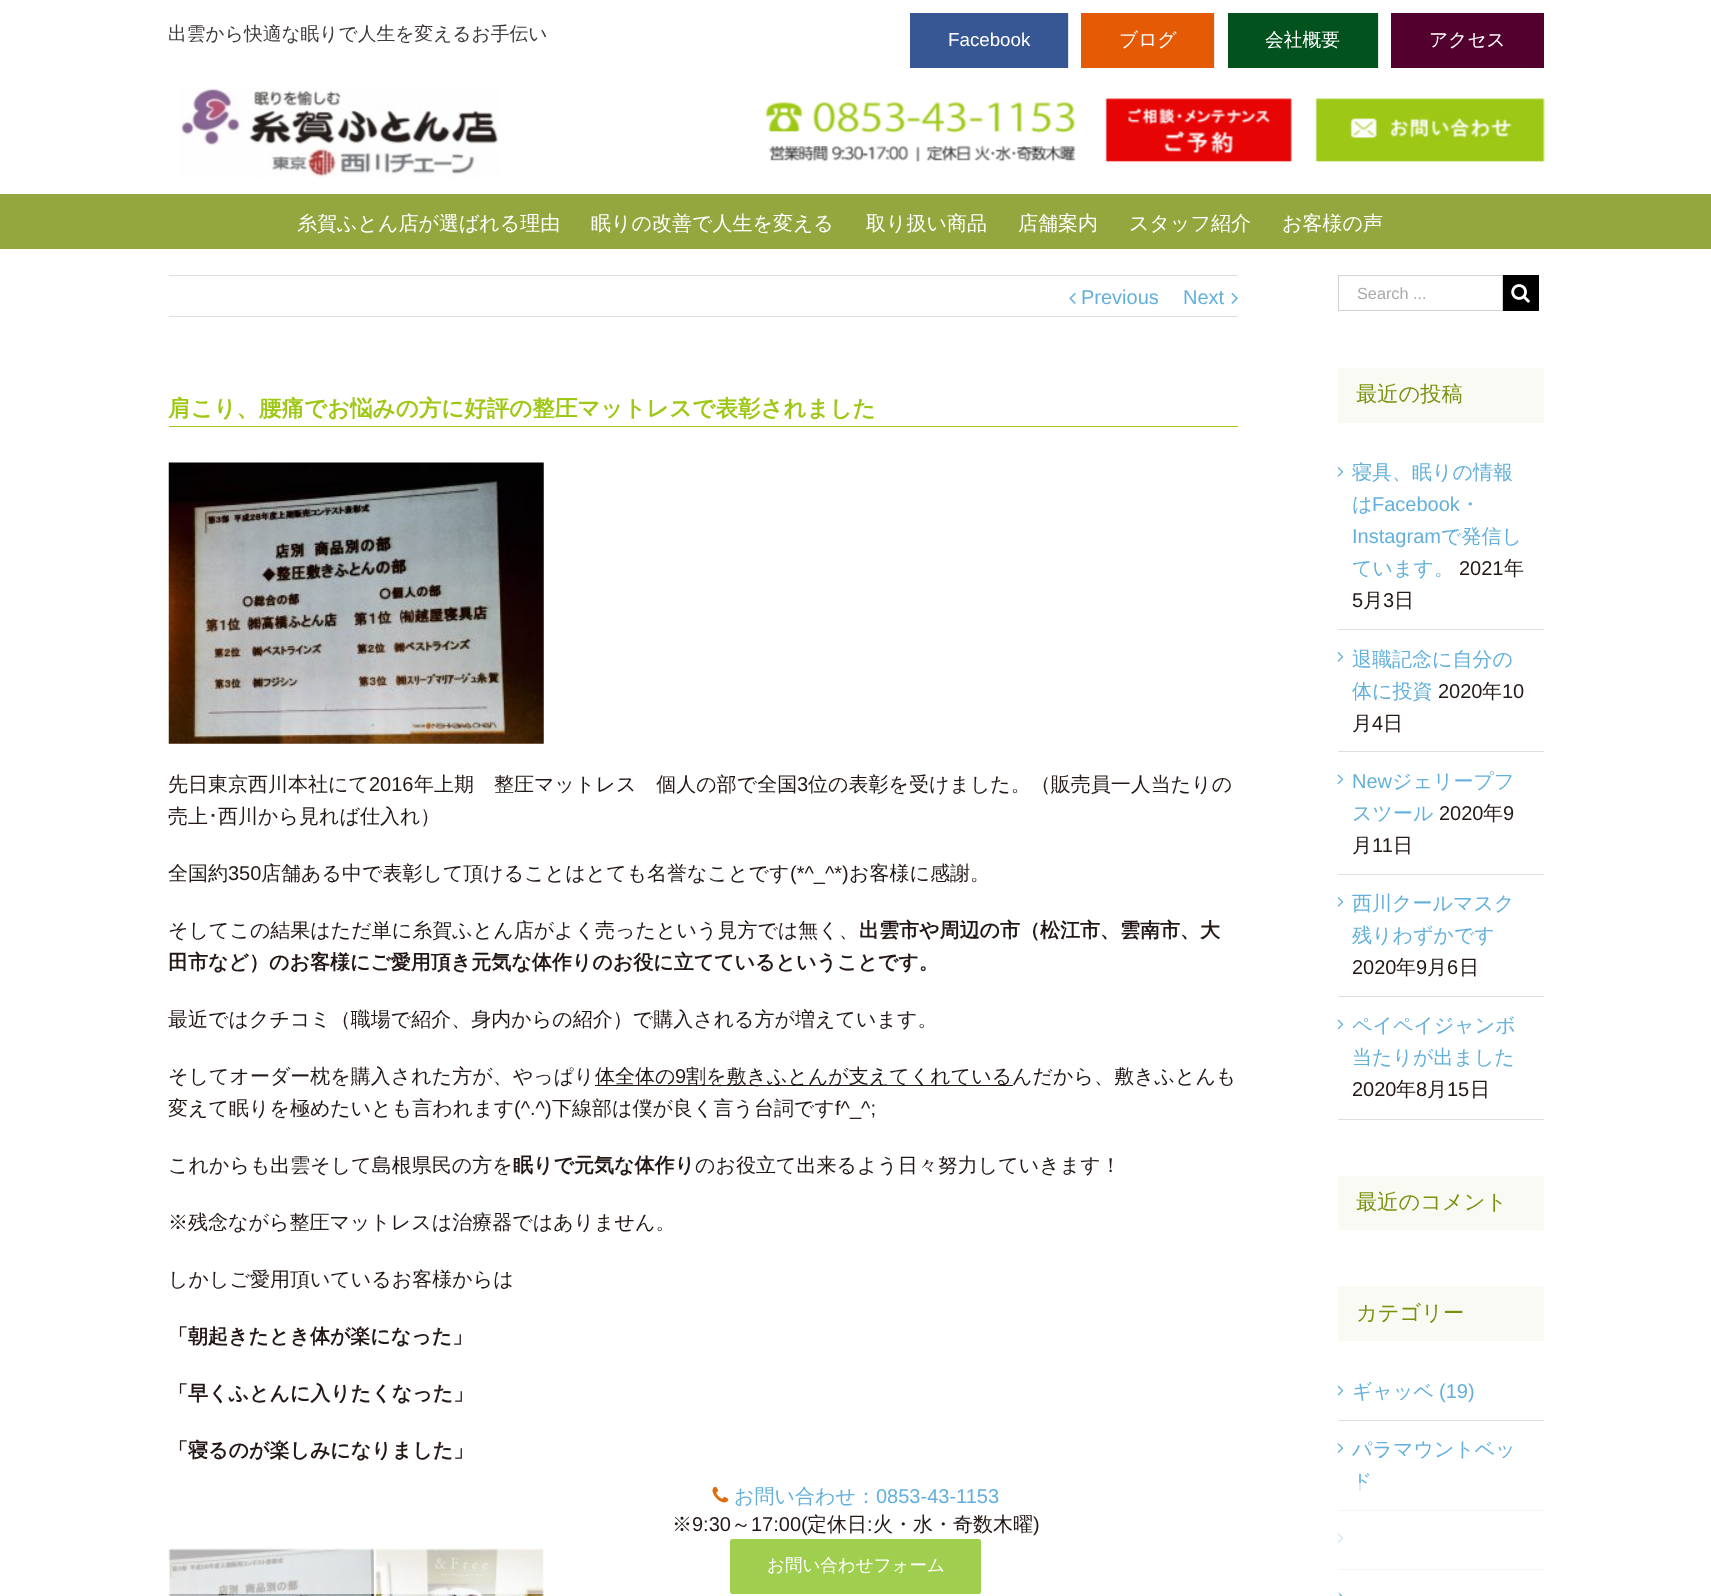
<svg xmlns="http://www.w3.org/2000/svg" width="1711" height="1596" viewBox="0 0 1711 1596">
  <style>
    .t1 { font: 500 18.75px WenQuanYi Zen Hei; fill: #3e3a39; }
    .t2 { font: 18.75px Liberation Sans; fill: #fff; }
    .t3 { font: 500 18.75px WenQuanYi Zen Hei; fill: #fff; }
    .t4 { font: 500 20px WenQuanYi Zen Hei; fill: #fff; }
    .t5 { font: 20px Liberation Sans; fill: #63b0dc; }
    .t6 { font: bold 22.5px WenQuanYi Zen Hei; fill: #9fc816; }
    .t7 { font: 500 20px WenQuanYi Zen Hei; fill: #231816; }
    .t8 { font: 20px Liberation Sans; fill: #231816; }
    .t9 { font: 20px IPAPGothic; fill: #231816; }
    .t10 { font: bold 20px WenQuanYi Zen Hei; fill: #231816; }
    .t11 { font: 16.25px Liberation Sans; fill: #aaa9a9; }
    .t12 { font: 500 21.25px WenQuanYi Zen Hei; fill: #79910f; }
    .t13 { font: 500 20px WenQuanYi Zen Hei; fill: #63b0dc; }
    .t14 { font: 500 17.5px WenQuanYi Zen Hei; fill: #fff; }
  </style>
  <rect width="100%" height="100%" fill="#fff"/>
  <text x="168" y="40" class="t1">出雲から快適な眠りで人生を変えるお手伝い</text>
  <rect x="910" y="13" width="158" height="55" fill="#375794"/>
  <text x="948" y="46" class="t2">Facebook</text>
  <rect x="1068" y="13" width="1" height="55" fill="#e5e5e5"/>
  <rect x="1081" y="13" width="133" height="55" fill="#e55a05"/>
  <text x="1119" y="46" class="t3">ブログ</text>
  <rect x="1214" y="13" width="1" height="55" fill="#e5e5e5"/>
  <rect x="1228" y="13" width="150" height="55" fill="#01521c"/>
  <text x="1265" y="46" class="t3">会社概要</text>
  <rect x="1378" y="13" width="1" height="55" fill="#e5e5e5"/>
  <rect x="1391" y="13" width="153" height="55" fill="#52012f"/>
  <text x="1429" y="46" class="t3">アクセス</text>
  <image x="180" y="88" width="319" height="90" href="images/1.png"/>
  <image x="765" y="102" width="311" height="60" href="images/2.png"/>
  <image x="1105" y="98" width="187" height="65" href="images/3.png"/>
  <image x="1315" y="98" width="230" height="65" href="images/4.png"/>
  <rect x="0" y="194" width="1711" height="55" fill="#94a73f"/>
  <text x="297" y="230" class="t4">糸賀ふとん店が選ばれる理由</text>
  <text x="591" y="230" class="t4">眠りの改善で人生を変える</text>
  <text x="866" y="230" class="t4">取り扱い商品</text>
  <text x="1018" y="230" class="t4">店舗案内</text>
  <text x="1129" y="230" class="t4">スタッフ紹介</text>
  <text x="1282" y="230" class="t4">お客様の声</text>
  <rect x="169" y="275" width="1069" height="1" fill="#e0dede"/>
  <rect x="169" y="316" width="1069" height="1" fill="#e0dede"/>
  <image x="1069" y="292" width="7" height="12" href="images/5.png"/>
  <text x="1081" y="304" class="t5">Previous</text>
  <text x="1183" y="304" class="t5">Next</text>
  <image x="1231" y="292" width="7" height="12" href="images/6.png"/>
  <rect x="169" y="426" width="1069" height="1" fill="#9fc816"/>
  <text x="168" y="416" class="t6">肩こり、腰痛でお悩みの方に好評の整圧マットレスで表彰されました</text>
  <image x="168" y="462" width="376" height="282" href="images/7.png"/>
  <text x="168" y="791" class="t7">先日東京西川本社にて</text>
  <text x="369" y="791" class="t8">2016</text>
  <text x="414" y="791" class="t7">年上期　整圧マットレス　個人の部で全国</text>
  <text x="797" y="791" class="t8">3</text>
  <text x="808" y="791" class="t7">位の表彰を受けました。（販売員一人当たりの</text>
  <text x="168" y="823" class="t7">売上</text>
  <text x="208" y="823" class="t9">･</text>
  <text x="218" y="823" class="t7">西川から見れば仕入れ）</text>
  <text x="168" y="880" class="t7">全国約</text>
  <text x="228" y="880" class="t8">350</text>
  <text x="261" y="880" class="t7">店舗ある中で表彰して頂けることはとても名誉なことです</text>
  <text x="790" y="880" class="t8">(*^_^*)</text>
  <text x="849" y="880" class="t7">お客様に感謝。</text>
  <text x="168" y="937" class="t7">そしてこの結果はただ単に糸賀ふとん店がよく売ったという見方では無く、</text>
  <text x="859" y="937" class="t10">出雲市や周辺の市（松江市、雲南市、大</text>
  <text x="168" y="969" class="t10">田市など）のお客様にご愛用頂き元気な体作りのお役に立てているということです。</text>
  <text x="168" y="1026" class="t7">最近ではクチコミ（職場で紹介、身内からの紹介）で購入される方が増えています。</text>
  <text x="168" y="1083" class="t7">そしてオーダー枕を購入された方が、やっぱり</text>
  <rect x="595" y="1085" width="418" height="1" fill="#231816"/>
  <text x="595" y="1083" class="t7">体全体の</text>
  <text x="675" y="1083" class="t8">9</text>
  <text x="686" y="1083" class="t7">割を敷きふとんが支えてくれているんだから、敷きふとんも</text>
  <text x="168" y="1115" class="t7">変えて眠りを極めたいとも言われます</text>
  <text x="514" y="1115" class="t8">(^.^)</text>
  <text x="552" y="1115" class="t7">下線部は僕が良く言う台詞です</text>
  <text x="835" y="1115" class="t8">f^_^;</text>
  <text x="168" y="1172" class="t7">これからも出雲そして島根県民の方を</text>
  <text x="513" y="1172" class="t10">眠りで元気な体作り</text>
  <text x="695" y="1172" class="t7">のお役立て出来るよう日々努力していきます！</text>
  <text x="168" y="1229" class="t7">※残念ながら整圧マットレスは治療器ではありません。</text>
  <text x="168" y="1286" class="t7">しかしご愛用頂いているお客様からは</text>
  <text x="168" y="1343" class="t10">「朝起きたとき体が楽になった」</text>
  <text x="168" y="1400" class="t10">「早くふとんに入りたくなった」</text>
  <text x="168" y="1457" class="t10">「寝るのが楽しみになりました」</text>
  <image x="168" y="1548" width="376" height="48" href="images/8.png"/>
  <rect x="1338.5" y="275.5" width="164" height="35" fill="none" stroke="#d2d2d2"/>
  <text x="1357" y="299" class="t11">Search ...</text>
  <rect x="1503" y="275" width="36" height="36" fill="#000"/>
  <image x="1511" y="284" width="19" height="19" href="images/9.png"/>
  <rect x="1338" y="368" width="206" height="55" fill="#f8faf3"/>
  <text x="1356" y="401" class="t12">最近の投稿</text>
  <rect x="1338" y="629" width="206" height="1" fill="#e0dede"/>
  <image x="1337" y="467" width="7" height="10" href="images/10.png"/>
  <text x="1352" y="479" class="t13">寝具、眠りの情報</text>
  <text x="1352" y="511" class="t13">は</text>
  <text x="1372" y="511" class="t5">Facebook</text>
  <text x="1460" y="511" class="t13">・</text>
  <text x="1352" y="543" class="t5">Instagram</text>
  <text x="1441" y="543" class="t13">で発信し</text>
  <text x="1352" y="575" class="t13">ています。</text>
  <text x="1459" y="575" class="t8">2021</text>
  <text x="1504" y="575" class="t7">年</text>
  <text x="1352" y="607" class="t8">5</text>
  <text x="1363" y="607" class="t7">月</text>
  <text x="1383" y="607" class="t8">3</text>
  <text x="1394" y="607" class="t7">日</text>
  <rect x="1338" y="751" width="206" height="1" fill="#e0dede"/>
  <image x="1337" y="652" width="7" height="10" href="images/10.png"/>
  <text x="1352" y="666" class="t13">退職記念に自分の</text>
  <text x="1352" y="698" class="t13">体に投資</text>
  <text x="1438" y="698" class="t8">2020</text>
  <text x="1482" y="698" class="t7">年</text>
  <text x="1502" y="698" class="t8">10</text>
  <text x="1352" y="730" class="t7">月</text>
  <text x="1372" y="730" class="t8">4</text>
  <text x="1383" y="730" class="t7">日</text>
  <rect x="1338" y="874" width="206" height="1" fill="#e0dede"/>
  <image x="1337" y="774" width="7" height="11" href="images/11.png"/>
  <text x="1352" y="788" class="t5">New</text>
  <text x="1392" y="788" class="t13">ジェリープフ</text>
  <text x="1352" y="820" class="t13">スツール</text>
  <text x="1439" y="820" class="t8">2020</text>
  <text x="1483" y="820" class="t7">年</text>
  <text x="1503" y="820" class="t8">9</text>
  <text x="1352" y="852" class="t7">月</text>
  <text x="1372" y="852" class="t8">11</text>
  <text x="1393" y="852" class="t7">日</text>
  <rect x="1338" y="996" width="206" height="1" fill="#e0dede"/>
  <image x="1337" y="897" width="7" height="10" href="images/10.png"/>
  <text x="1352" y="910" class="t13">西川クールマスク</text>
  <text x="1352" y="942" class="t13">残りわずかです</text>
  <text x="1352" y="974" class="t8">2020</text>
  <text x="1396" y="974" class="t7">年</text>
  <text x="1416" y="974" class="t8">9</text>
  <text x="1427" y="974" class="t7">月</text>
  <text x="1447" y="974" class="t8">6</text>
  <text x="1459" y="974" class="t7">日</text>
  <rect x="1338" y="1119" width="206" height="1" fill="#e0dede"/>
  <image x="1337" y="1019" width="7" height="11" href="images/11.png"/>
  <text x="1352" y="1032" class="t13">ペイペイジャンボ</text>
  <text x="1352" y="1064" class="t13">当たりが出ました</text>
  <text x="1352" y="1096" class="t8">2020</text>
  <text x="1396" y="1096" class="t7">年</text>
  <text x="1416" y="1096" class="t8">8</text>
  <text x="1427" y="1096" class="t7">月</text>
  <text x="1447" y="1096" class="t8">15</text>
  <text x="1470" y="1096" class="t7">日</text>
  <rect x="1338" y="1176" width="206" height="54" fill="#f8faf3"/>
  <text x="1356" y="1209" class="t12">最近のコメント</text>
  <rect x="1338" y="1286" width="206" height="55" fill="#f8faf3"/>
  <text x="1356" y="1320" class="t12">カテゴリー</text>
  <rect x="1338" y="1420" width="206" height="1" fill="#e0dede"/>
  <image x="1337" y="1385" width="7" height="11" href="images/12.png"/>
  <text x="1352" y="1398" class="t13">ギャッベ</text>
  <text x="1439" y="1398" class="t5">(19)</text>
  <rect x="1338" y="1510" width="206" height="1" fill="#e0dede"/>
  <image x="1337" y="1443" width="7" height="10" href="images/13.png"/>
  <text x="1352" y="1456" class="t13">パラマウントベッ</text>
  <text x="1352" y="1488" class="t13">ド</text>
  <rect x="1338" y="1569" width="206" height="1" fill="#e0dede"/>
  <image x="1337" y="1533" width="7" height="10" href="images/13.png"/>
  <image x="1337" y="1592" width="6" height="4" href="images/14.png"/>
  <rect x="168" y="1483" width="1376" height="111" fill="#ffffffb3"/>
  <image x="712" y="1486" width="17" height="17" href="images/15.png"/>
  <text x="734" y="1503" class="t13">お問い合わせ：</text>
  <text x="876" y="1503" class="t5">0853-43-1153</text>
  <text x="672" y="1531" class="t7">※</text>
  <text x="692" y="1531" class="t8">9:30</text>
  <text x="731" y="1531" class="t7">～</text>
  <text x="751" y="1531" class="t8">17:00(</text>
  <text x="807" y="1531" class="t7">定休日</text>
  <text x="867" y="1531" class="t8">:</text>
  <text x="873" y="1531" class="t7">火・水・奇数木曜</text>
  <text x="1033" y="1531" class="t8">)</text>
  <rect x="730" y="1539" width="251" height="55" rx="2.5" fill="#a0ce4e"/>
  <text x="767" y="1571" class="t14">お問い合わせフォーム</text>
</svg>
